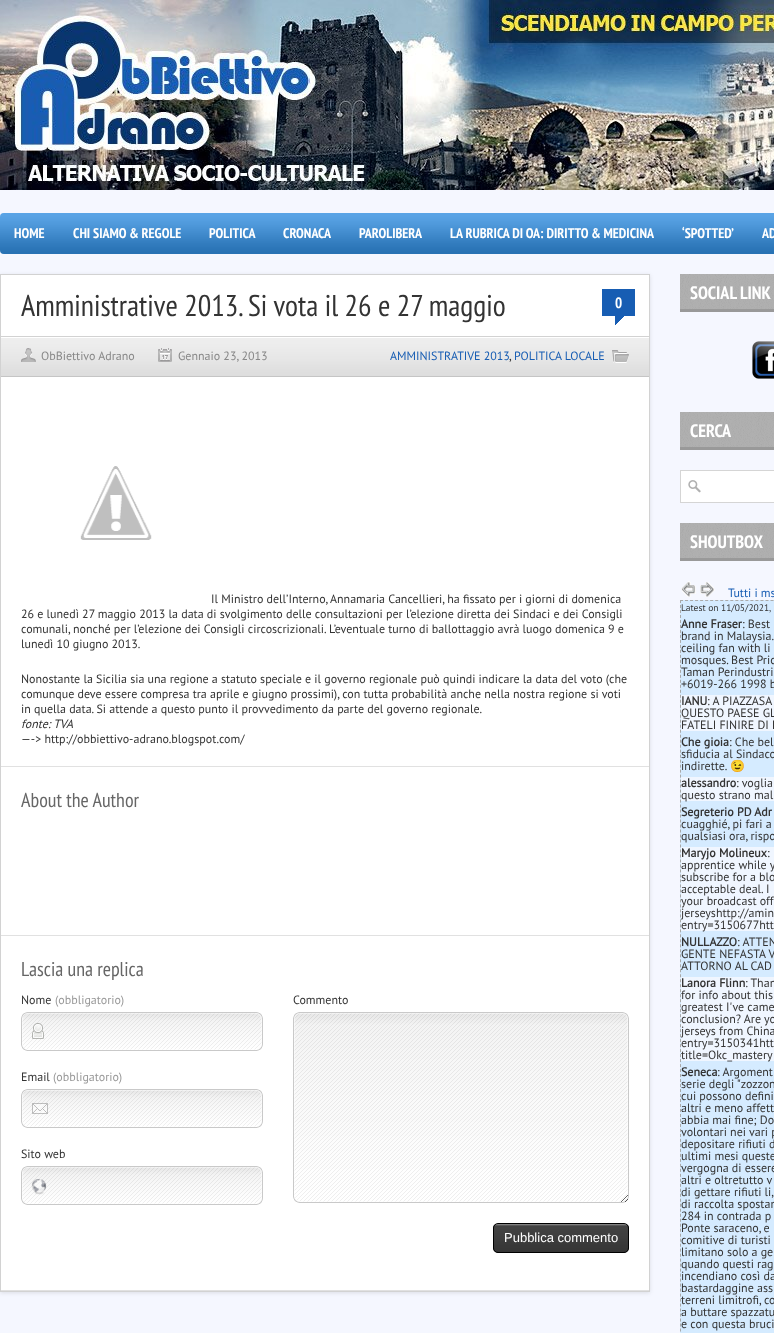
<svg xmlns="http://www.w3.org/2000/svg" width="774" height="1333" viewBox="0 0 774 1333">
  <style>
    .t1 { font: bold 14px PT Sans Narrow; fill: #fff; }
    .t2 { font: 30px PT Sans Narrow; fill: #333; }
    .t3 { font: bold 15px PT Sans Narrow; fill: #fff; }
    .t4 { font: 12px PT Sans; fill: #888; }
    .t5 { font: 12px PT Sans; fill: #175db3; }
    .t6 { font: 12px PT Sans; fill: #333; }
    .t7 { font: italic 12px PT Sans; fill: #333; }
    .t8 { font: 20px PT Sans Narrow; fill: #666; }
    .t9 { font: 12px PT Sans; fill: #999; }
    .t10 { font: 13px Liberation Sans; fill: #fff; }
    .t11 { font: bold 18px PT Sans Narrow; fill: #fff; }
    .t12 { font: 9.5px PT Sans; fill: #333; }
    .t13 { font: bold 12px PT Sans; fill: #333; }
    .t14 { font: 12px Noto Color Emoji; fill: #333; }
  </style>
  <rect width="100%" height="100%" fill="#f5f7ff"/>
  <image x="0" y="0" width="774" height="190" href="images/1.png"/>
  <rect x="0" y="213" width="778" height="41" rx="4" fill="#318ee0"/>
  <image x="0" y="213" width="774" height="41" href="images/2.png"/>
  <text x="14" y="238" class="t1">HOME</text>
  <text x="73" y="238" class="t1">CHI SIAMO &amp; REGOLE</text>
  <text x="209" y="238" class="t1">POLITICA</text>
  <text x="283" y="238" class="t1">CRONACA</text>
  <text x="359" y="238" class="t1">PAROLIBERA</text>
  <text x="450" y="238" class="t1">LA RUBRICA DI OA: DIRITTO &amp; MEDICINA</text>
  <text x="682" y="238" class="t1">‘SPOTTED’</text>
  <text x="762" y="238" class="t1">AD</text>
  <rect x="0" y="275" width="650" height="1018" fill="#0000001a" filter="blur(2px)"/>
  <rect x="1" y="275" width="648" height="1015" fill="#fff"/>
  <rect x="0.5" y="274.5" width="649" height="1017" fill="none" stroke="#d2d2d2"/>
  <text x="21" y="316" class="t2">Amministrative 2013. Si vota il 26 e 27 maggio</text>
  <rect x="602" y="289" width="33" height="36" fill="#175db3"/>
  <image x="602" y="316" width="33" height="9" href="images/3.png"/>
  <text x="615" y="308" class="t3">0</text>
  <image x="1" y="338" width="648" height="38" href="images/4.png"/>
  <rect x="1" y="336" width="648" height="1" fill="#d2d2d2"/>
  <rect x="1" y="376" width="648" height="1" fill="#c5c5c5"/>
  <image x="21" y="348" width="15" height="14" href="images/5.png"/>
  <text x="41" y="360" class="t4">ObBiettivo Adrano</text>
  <image x="158" y="348" width="14" height="14" href="images/6.png"/>
  <text x="178" y="360" class="t4">Gennaio 23, 2013</text>
  <image x="612" y="350" width="17" height="13" href="images/7.png"/>
  <text x="390" y="360" class="t5">AMMINISTRATIVE 2013</text>
  <text x="509" y="360" class="t6">,</text>
  <text x="514" y="360" class="t5">POLITICA LOCALE</text>
  <image x="80" y="466" width="72" height="74" href="images/8.png"/>
  <text x="211" y="603" class="t6">Il Ministro dell’Interno, Annamaria Cancellieri, ha fissato per i giorni di domenica</text>
  <text x="21" y="618" class="t6">26 e lunedì 27 maggio 2013 la data di svolgimento delle consultazioni per l’elezione diretta dei Sindaci e dei Consigli</text>
  <text x="21" y="633" class="t6">comunali, nonché per l’elezione dei Consigli circoscrizionali. L’eventuale turno di ballottaggio avrà luogo domenica 9 e</text>
  <text x="21" y="648" class="t6">lunedì 10 giugno 2013.</text>
  <text x="21" y="683" class="t6">Nonostante la Sicilia sia una regione a statuto speciale e il governo regionale può quindi indicare la data del voto (che</text>
  <text x="21" y="698" class="t6">comunque deve essere compresa tra aprile e giugno prossimi), con tutta probabilità anche nella nostra regione si voti</text>
  <text x="21" y="713" class="t6">in quella data. Si attende a questo punto il provvedimento da parte del governo regionale.</text>
  <text x="21" y="728" class="t7">fonte: TVA</text>
  <text x="21" y="743" class="t6">—-&gt; http://obbiettivo-adrano.blogspot.com/</text>
  <rect x="1" y="766" width="648" height="1" fill="#e1e1e1"/>
  <rect x="1" y="935" width="648" height="1" fill="#e1e1e1"/>
  <text x="21" y="807" class="t8">About the Author</text>
  <rect x="1" y="1290" width="648" height="1" fill="#e1e1e1"/>
  <text x="21" y="976" class="t8">Lascia una replica</text>
  <text x="21" y="1004" class="t6">Nome</text>
  <text x="55" y="1004" class="t9">(obbligatorio)</text>
  <image x="21" y="1012" width="242" height="39" href="images/9.png"/>
  <text x="21" y="1081" class="t6">Email</text>
  <text x="53" y="1081" class="t9">(obbligatorio)</text>
  <image x="21" y="1089" width="242" height="39" href="images/10.png"/>
  <text x="21" y="1158" class="t6">Sito web</text>
  <image x="21" y="1166" width="242" height="39" href="images/11.png"/>
  <text x="293" y="1004" class="t6">Commento</text>
  <image x="293" y="1012" width="336" height="191" href="images/12.png"/>
  <image x="493" y="1224" width="136" height="29" href="images/13.png"/>
  <rect x="493.5" y="1223.5" width="135" height="29" rx="4.5" fill="none" stroke="#000"/>
  <text x="504" y="1242" class="t10">Pubblica commento</text>
  <image x="680" y="274" width="94" height="38" href="images/14.png"/>
  <text x="690" y="299" class="t11">SOCIAL LINK</text>
  <image x="752" y="341" width="22" height="38" href="images/15.png"/>
  <image x="680" y="412" width="94" height="38" href="images/14.png"/>
  <text x="690" y="437" class="t11">CERCA</text>
  <rect x="681" y="471" width="93" height="31" fill="#fff"/>
  <image x="688" y="480" width="13" height="13" href="images/16.png"/>
  <rect x="680.5" y="470.5" width="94" height="32" fill="none" stroke="#d5d5d5"/>
  <image x="680" y="523" width="94" height="38" href="images/14.png"/>
  <text x="690" y="548" class="t11">SHOUTBOX</text>
  <image x="681" y="581" width="15" height="16" href="images/17.png"/>
  <image x="700" y="582" width="15" height="15" href="images/18.png"/>
  <text x="728" y="597" class="t5">Tutti i ms</text>
  <rect x="680" y="600" width="94" height="733" fill="#d5ebff"/>
  <path d="M680 600.5H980" fill="none" stroke="#aaa" stroke-dasharray="3 2.03"/>
  <path d="M680.5 600V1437" fill="none" stroke="#aaa" stroke-dasharray="3 1.99"/>
  <text x="681" y="611" class="t12">Latest on 11/05/2021,</text>
  <text x="681" y="628" class="t13">Anne Fraser</text>
  <text x="742" y="628" class="t6">: Best</text>
  <text x="681" y="640" class="t6">brand in Malaysia.</text>
  <text x="681" y="652" class="t6">ceiling fan with li</text>
  <text x="681" y="664" class="t6">mosques. Best Pric</text>
  <text x="681" y="676" class="t6">Taman Perindustri</text>
  <text x="681" y="688" class="t6">+6019-266 1998 b</text>
  <rect x="681" y="695" width="93" height="36" fill="#f0f6ff"/>
  <text x="681" y="705" class="t13">IANU</text>
  <text x="707" y="705" class="t6">: A PIAZZASA</text>
  <text x="681" y="717" class="t6">QUESTO PAESE GL</text>
  <text x="681" y="729" class="t6">FATELI FINIRE DI L</text>
  <text x="681" y="746" class="t13">Che gioia</text>
  <text x="729" y="746" class="t6">: Che bel</text>
  <text x="681" y="758" class="t6">sfiducia al Sindaco</text>
  <text x="681" y="770" class="t6">indirette.</text>
  <text x="730" y="770" class="t14">😉</text>
  <rect x="681" y="777" width="93" height="24" fill="#f0f6ff"/>
  <text x="681" y="787" class="t13">alessandro</text>
  <text x="736" y="787" class="t6">: voglia</text>
  <text x="681" y="799" class="t6">questo strano mal</text>
  <text x="681" y="816" class="t13">Segreterio PD Adr</text>
  <text x="681" y="828" class="t6">cuagghié, pi fari a</text>
  <text x="681" y="840" class="t6">qualsiasi ora, rispo</text>
  <rect x="681" y="847" width="93" height="84" fill="#f0f6ff"/>
  <text x="681" y="857" class="t13">Maryjo Molineux</text>
  <text x="767" y="857" class="t6">:</text>
  <text x="681" y="869" class="t6">apprentice while y</text>
  <text x="681" y="881" class="t6">subscribe for a blo</text>
  <text x="681" y="893" class="t6">acceptable deal. I</text>
  <text x="681" y="905" class="t6">your broadcast off</text>
  <text x="681" y="917" class="t6">jerseyshttp://amin</text>
  <text x="681" y="929" class="t6">entry=3150677htt</text>
  <text x="681" y="946" class="t13">NULLAZZO</text>
  <text x="737" y="946" class="t6">: ATTEN</text>
  <text x="681" y="958" class="t6">GENTE NEFASTA V</text>
  <text x="681" y="970" class="t6">ATTORNO AL CAD</text>
  <rect x="681" y="977" width="93" height="84" fill="#f0f6ff"/>
  <text x="681" y="987" class="t13">Lanora Flinn</text>
  <text x="745" y="987" class="t6">: Than</text>
  <text x="681" y="999" class="t6">for info about this</text>
  <text x="681" y="1011" class="t6">greatest I've came</text>
  <text x="681" y="1023" class="t6">conclusion? Are yo</text>
  <text x="681" y="1035" class="t6">jerseys from China</text>
  <text x="681" y="1047" class="t6">entry=3150341htt</text>
  <text x="681" y="1059" class="t6">title=Okc_mastery</text>
  <text x="681" y="1076" class="t13">Seneca</text>
  <text x="717" y="1076" class="t6">: Argoment</text>
  <text x="681" y="1088" class="t6">serie degli "zozzon</text>
  <text x="681" y="1100" class="t6">cui possono defini</text>
  <text x="681" y="1112" class="t6">altri e meno affett</text>
  <text x="681" y="1124" class="t6">abbia mai fine; Do</text>
  <text x="681" y="1136" class="t6">volontari nei vari p</text>
  <text x="681" y="1148" class="t6">depositare rifiuti d</text>
  <text x="681" y="1160" class="t6">ultimi mesi queste</text>
  <text x="681" y="1172" class="t6">vergogna di essere</text>
  <text x="681" y="1184" class="t6">altri e oltretutto v</text>
  <text x="681" y="1196" class="t6">di gettare rifiuti li,</text>
  <text x="681" y="1208" class="t6">di raccolta spostan</text>
  <text x="681" y="1220" class="t6">284 in contrada p</text>
  <text x="681" y="1232" class="t6">Ponte saraceno, e</text>
  <text x="681" y="1244" class="t6">comitive di turisti</text>
  <text x="681" y="1256" class="t6">limitano solo a ge</text>
  <text x="681" y="1268" class="t6">quando questi rag</text>
  <text x="681" y="1280" class="t6">incendiano così da</text>
  <text x="681" y="1292" class="t6">bastardaggine ass</text>
  <text x="681" y="1304" class="t6">terreni limitrofi, co</text>
  <text x="681" y="1316" class="t6">a buttare spazzatu</text>
  <text x="681" y="1328" class="t6">e con questa bruci</text>
</svg>
